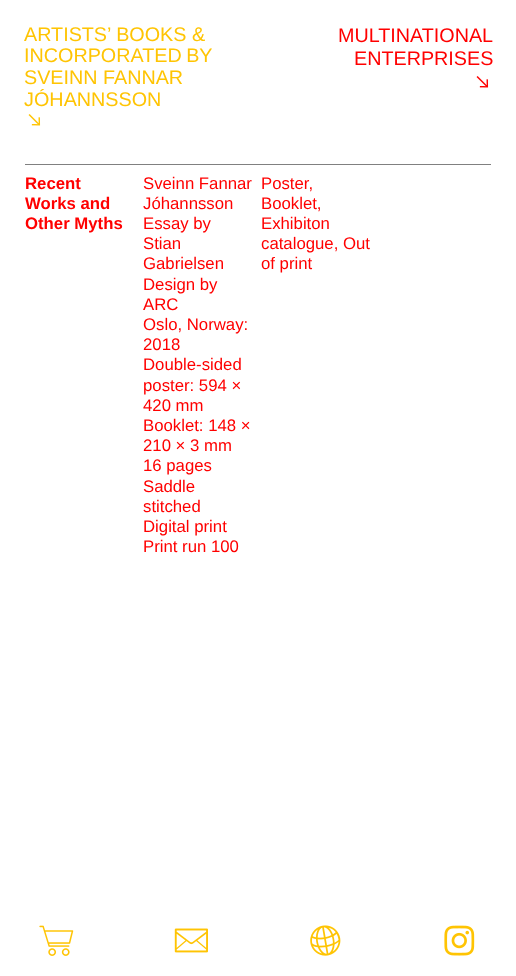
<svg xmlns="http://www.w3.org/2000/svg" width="516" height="976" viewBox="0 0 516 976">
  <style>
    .t1 { font: 19.75px Liberation Sans; fill: #ffc403; }
    .t2 { font: 19.75px Liberation Sans; fill: #f00; }
    .t3 { font: bold 16.75px Liberation Sans; fill: #f00; }
    .t4 { font: 16.75px Liberation Sans; fill: #f00; }
  </style>
  <rect width="100%" height="100%" fill="#fff"/>
  <text x="24" y="41" class="t1">ARTISTS’ BOOKS &amp;</text>
  <text x="24" y="62" word-spacing="-1" class="t1">INCORPORATED BY</text>
  <text x="24" y="84" class="t1">SVEINN FANNAR</text>
  <text x="24" y="106" class="t1">J</text>
  <text x="34" y="106" class="t1">ÓHANNSSON</text>
  <image x="28" y="114" width="13" height="12" href="images/1.png"/>
  <text x="338" y="42" class="t2">MULTINATIONAL</text>
  <text x="354" y="65" class="t2">ENTERPRISES</text>
  <image x="476" y="76" width="13" height="12" href="images/2.png"/>
  <rect x="25" y="164" width="466" height="1" fill="#808080"/>
  <text x="25" y="189" class="t3">Recent</text>
  <text x="25" y="209" class="t3">Works and</text>
  <text x="25" y="229" class="t3">Other Myths</text>
  <text x="143" y="189" class="t4">Sveinn Fannar</text>
  <text x="143" y="209" class="t4">Jóhannsson</text>
  <text x="143" y="229" class="t4">Essay by</text>
  <text x="143" y="249" class="t4">Stian</text>
  <text x="143" y="269" class="t4">Gabrielsen</text>
  <text x="143" y="290" class="t4">Design by</text>
  <text x="143" y="310" class="t4">ARC</text>
  <text x="143" y="330" class="t4">Oslo, Norway:</text>
  <text x="143" y="350" class="t4">2018</text>
  <text x="143" y="370" class="t4">Double-sided</text>
  <text x="143" y="391" class="t4">poster: 594 ×</text>
  <text x="143" y="411" class="t4">420 mm</text>
  <text x="143" y="431" class="t4">Booklet: 148 ×</text>
  <text x="143" y="451" class="t4">210 × 3 mm</text>
  <text x="143" y="471" class="t4">16 pages</text>
  <text x="143" y="492" class="t4">Saddle</text>
  <text x="143" y="512" class="t4">stitched</text>
  <text x="143" y="532" class="t4">Digital print</text>
  <text x="143" y="552" class="t4">Print run 100</text>
  <text x="261" y="189" class="t4">Poster,</text>
  <text x="261" y="209" class="t4">Booklet,</text>
  <text x="261" y="229" class="t4">Exhibiton</text>
  <text x="261" y="249" class="t4">catalogue, Out</text>
  <text x="261" y="269" class="t4">of print</text>
  <image x="39" y="925" width="35" height="31" href="images/3.png"/>
  <image x="174" y="928" width="34" height="25" href="images/4.png"/>
  <image x="310" y="925" width="31" height="31" href="images/5.png"/>
  <image x="444" y="925" width="31" height="31" href="images/6.png"/>
</svg>
